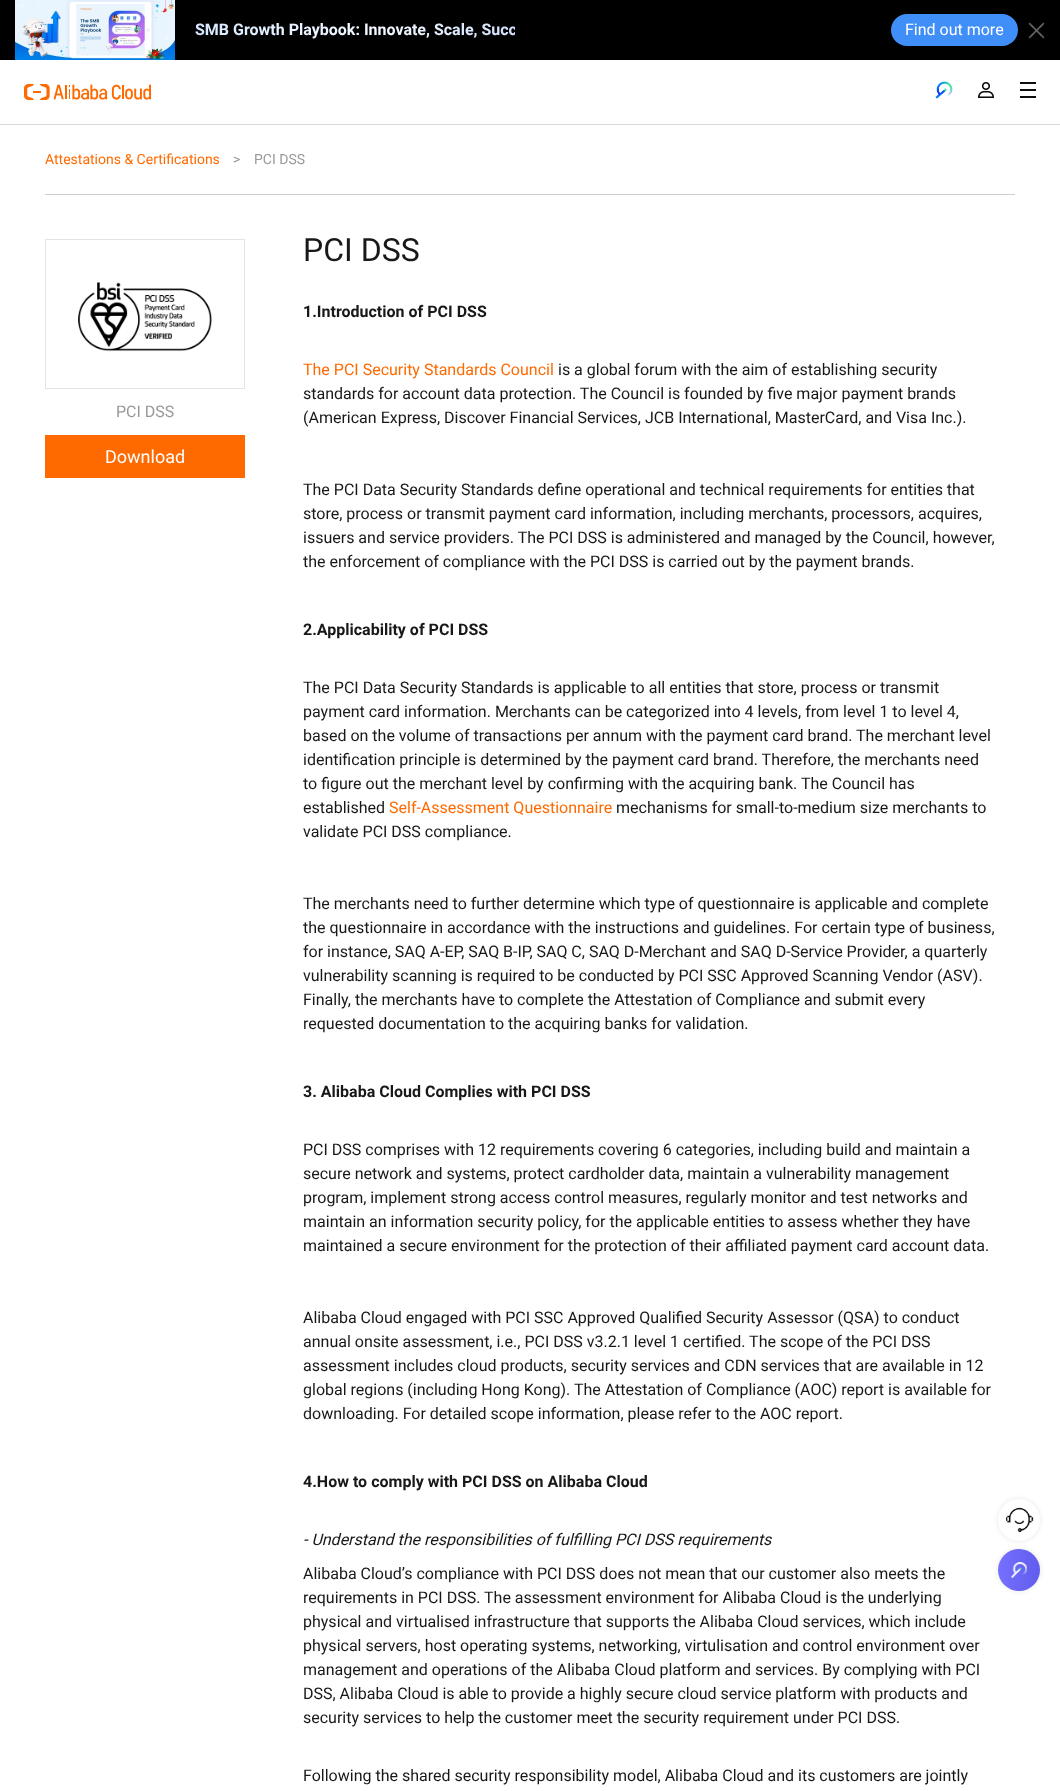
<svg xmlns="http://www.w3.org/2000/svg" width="1060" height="1791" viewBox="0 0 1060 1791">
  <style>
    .t1 { font: bold 16px Roboto; fill: url(#g1); }
    .t2 { font: 16px Roboto; fill: #fff; }
    .t3 { font: 14px Roboto; fill: #ff6a00; }
    .t4 { font: 14px Roboto; fill: #999; }
    .t5 { font: 16px Roboto; fill: #999; }
    .t6 { font: 18px Roboto; fill: #fff; }
    .t7 { font: 32px Roboto; fill: #181818; }
    .t8 { font: bold 16px Roboto; fill: #181818; }
    .t9 { font: 16px Roboto; fill: #ff6a00; }
    .t10 { font: 16px Roboto; fill: #181818; }
    .t11 { font: italic 16px Roboto; fill: #181818; }
  </style>
  <defs>
    <clipPath id="clip1"><rect x="175" y="0" width="340" height="60"/></clipPath>
    <linearGradient id="g1" gradientUnits="userSpaceOnUse" x1="195" y1="30" x2="543" y2="30"><stop offset="0" stop-color="#d6e8ff"/><stop offset="0.5" stop-color="#f4faff"/><stop offset="1" stop-color="#cadaf9"/></linearGradient>
    <linearGradient id="g2" gradientUnits="userSpaceOnUse" x1="998" y1="1570" x2="1040" y2="1570"><stop offset="0" stop-color="#7570ff"/><stop offset="1" stop-color="#615ced"/></linearGradient>
  </defs>
  <rect width="100%" height="100%" fill="#fff"/>
  <rect x="0" y="0" width="1060" height="60" fill="#000"/>
  <image x="15" y="0" width="160" height="60" href="images/1.png"/>
  <g clip-path="url(#clip1)">
    <text x="195" y="35" class="t1">SMB Growth Playbook: Innovate, Scale, Succ</text>
  </g>
  <rect x="891" y="14" width="127" height="32" rx="16" fill="#408ff8"/>
  <text x="905" y="35" class="t2">Find out more</text>
  <image x="1028" y="22" width="17" height="17" href="images/2.png"/>
  <rect x="0" y="124" width="1060" height="1" fill="#d8d8d8"/>
  <image x="24" y="84" width="127" height="16" href="images/3.png"/>
  <image x="935" y="81" width="18" height="18" href="images/4.png"/>
  <image x="978" y="82" width="16" height="16" href="images/5.png"/>
  <rect x="1020" y="82" width="16" height="2" fill="#0d0d0e"/>
  <rect x="1020" y="89" width="16" height="2" fill="#0d0d0e"/>
  <rect x="1020" y="96" width="16" height="2" fill="#0d0d0e"/>
  <rect x="45" y="194" width="970" height="1" fill="#cfcfcf"/>
  <text x="45" y="164" class="t3">Attestations &amp; Certifications</text>
  <text x="233" y="164" class="t4">&gt;</text>
  <text x="254" y="164" class="t4">PCI DSS</text>
  <rect x="45.5" y="239.5" width="199" height="149" fill="none" stroke="#e4e4e4"/>
  <image x="78" y="282" width="134" height="70" href="images/6.png"/>
  <text x="116" y="417" class="t5">PCI DSS</text>
  <rect x="45" y="435" width="200" height="43" fill="#ff6a00"/>
  <text x="105" y="463" class="t6">Download</text>
  <text x="303" y="261" class="t7">PCI DSS</text>
  <text x="303" y="317" class="t8">1.Introduction of PCI DSS</text>
  <text x="303" y="375" class="t9">The PCI Security Standards Council</text>
  <text x="558" y="375" class="t10">is a global forum with the aim of establishing security</text>
  <text x="303" y="399" class="t10">standards for account data protection. The Council is founded by five major payment brands</text>
  <text x="303" y="423" class="t10">(American Express, Discover Financial Services, JCB International, MasterCard, and Visa Inc.).</text>
  <text x="303" y="495" class="t10">The PCI Data Security Standards define operational and technical requirements for entities that</text>
  <text x="303" y="519" class="t10">store, process or transmit payment card information, including merchants, processors, acquires,</text>
  <text x="303" y="543" class="t10">issuers and service providers. The PCI DSS is administered and managed by the Council, however,</text>
  <text x="303" y="567" class="t10">the enforcement of compliance with the PCI DSS is carried out by the payment brands.</text>
  <text x="303" y="635" class="t8">2.Applicability of PCI DSS</text>
  <text x="303" y="693" class="t10">The PCI Data Security Standards is applicable to all entities that store, process or transmit</text>
  <text x="303" y="717" class="t10">payment card information. Merchants can be categorized into 4 levels, from level 1 to level 4,</text>
  <text x="303" y="741" class="t10">based on the volume of transactions per annum with the payment card brand. The merchant level</text>
  <text x="303" y="765" class="t10">identification principle is determined by the payment card brand. Therefore, the merchants need</text>
  <text x="303" y="789" class="t10">to figure out the merchant level by confirming with the acquiring bank. The Council has</text>
  <text x="303" y="813" class="t10">established</text>
  <text x="389" y="813" class="t9">Self-Assessment Questionnaire</text>
  <text x="616" y="813" class="t10">mechanisms for small-to-medium size merchants to</text>
  <text x="303" y="837" class="t10">validate PCI DSS compliance.</text>
  <text x="303" y="909" class="t10">The merchants need to further determine which type of questionnaire is applicable and complete</text>
  <text x="303" y="933" class="t10">the questionnaire in accordance with the instructions and guidelines. For certain type of business,</text>
  <text x="303" y="957" class="t10">for instance, SAQ A-EP, SAQ B-IP, SAQ C, SAQ D-Merchant and SAQ D-Service Provider, a quarterly</text>
  <text x="303" y="981" class="t10">vulnerability scanning is required to be conducted by PCI SSC Approved Scanning Vendor (ASV).</text>
  <text x="303" y="1005" class="t10">Finally, the merchants have to complete the Attestation of Compliance and submit every</text>
  <text x="303" y="1029" class="t10">requested documentation to the acquiring banks for validation.</text>
  <text x="303" y="1097" class="t8">3. Alibaba Cloud Complies with PCI DSS</text>
  <text x="303" y="1155" class="t10">PCI DSS comprises with 12 requirements covering 6 categories, including build and maintain a</text>
  <text x="303" y="1179" class="t10">secure network and systems, protect cardholder data, maintain a vulnerability management</text>
  <text x="303" y="1203" class="t10">program, implement strong access control measures, regularly monitor and test networks and</text>
  <text x="303" y="1227" class="t10">maintain an information security policy, for the applicable entities to assess whether they have</text>
  <text x="303" y="1251" class="t10">maintained a secure environment for the protection of their affiliated payment card account data.</text>
  <text x="303" y="1323" class="t10">Alibaba Cloud engaged with PCI SSC Approved Qualified Security Assessor (QSA) to conduct</text>
  <text x="303" y="1347" class="t10">annual onsite assessment, i.e., PCI DSS v3.2.1 level 1 certified. The scope of the PCI DSS</text>
  <text x="303" y="1371" class="t10">assessment includes cloud products, security services and CDN services that are available in 12</text>
  <text x="303" y="1395" class="t10">global regions (including Hong Kong). The Attestation of Compliance (AOC) report is available for</text>
  <text x="303" y="1419" class="t10">downloading. For detailed scope information, please refer to the AOC report.</text>
  <text x="303" y="1487" class="t8">4.How to comply with PCI DSS on Alibaba Cloud</text>
  <text x="303" y="1545" class="t11">- Understand the responsibilities of fulfilling PCI DSS requirements</text>
  <text x="303" y="1579" class="t10">Alibaba Cloud’s compliance with PCI DSS does not mean that our customer also meets the</text>
  <text x="303" y="1603" class="t10">requirements in PCI DSS. The assessment environment for Alibaba Cloud is the underlying</text>
  <text x="303" y="1627" class="t10">physical and virtualised infrastructure that supports the Alibaba Cloud services, which include</text>
  <text x="303" y="1651" class="t10">physical servers, host operating systems, networking, virtulisation and control environment over</text>
  <text x="303" y="1675" class="t10">management and operations of the Alibaba Cloud platform and services. By complying with PCI</text>
  <text x="303" y="1699" class="t10">DSS, Alibaba Cloud is able to provide a highly secure cloud service platform with products and</text>
  <text x="303" y="1723" class="t10">security services to help the customer meet the security requirement under PCI DSS.</text>
  <text x="303" y="1781" class="t10">Following the shared security responsibility model, Alibaba Cloud and its customers are jointly</text>
  <rect x="998" y="1499" width="42" height="42" rx="21" fill="#0000001a" filter="blur(2.5px)"/>
  <circle cx="1019" cy="1520" r="21" fill="#fff"/>
  <image x="1006" y="1507" width="28" height="26" href="images/7.png"/>
  <rect x="998" y="1549" width="42" height="42" rx="21" fill="#0000001a" filter="blur(2.5px)"/>
  <circle cx="1019" cy="1570" r="21" fill="url(#g2)"/>
  <image x="1011" y="1562" width="16" height="16" href="images/8.png"/>
</svg>
